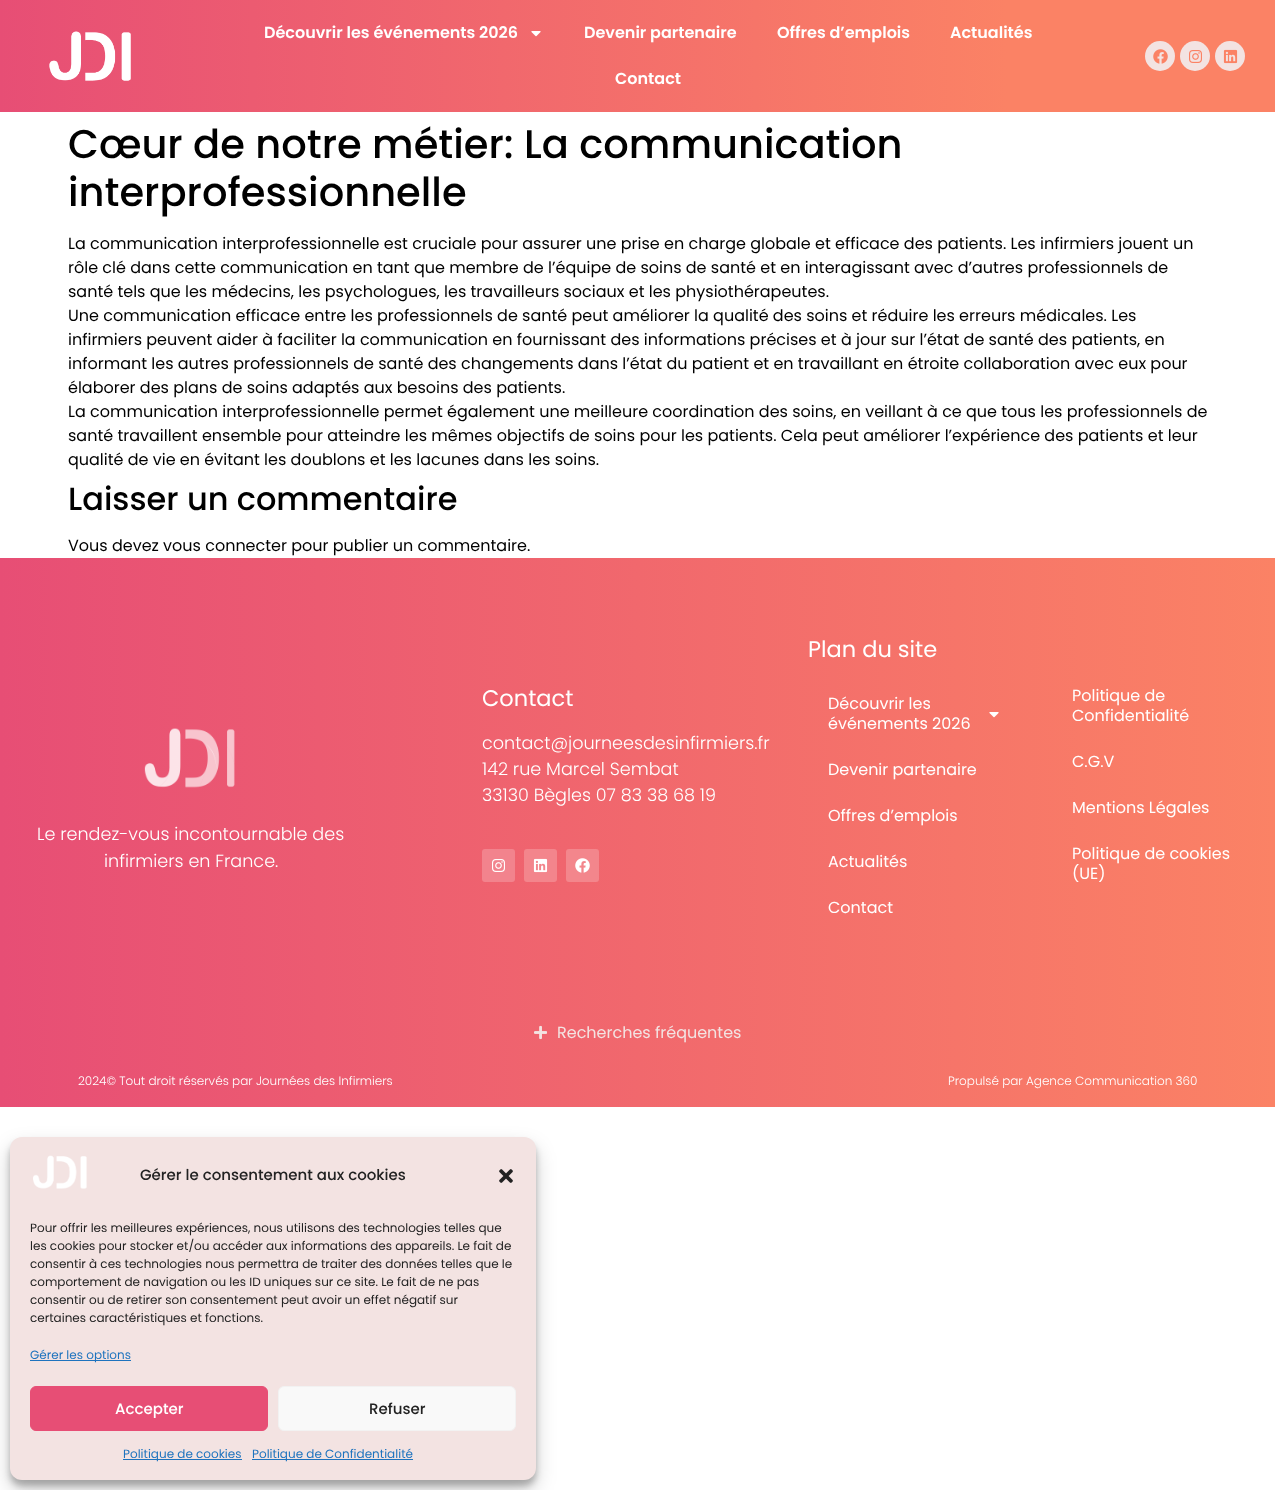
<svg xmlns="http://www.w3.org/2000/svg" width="1275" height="1490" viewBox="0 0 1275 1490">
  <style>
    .t1 { font: 600 16px Poppins; fill: #fff; }
    .t2 { font: 500 40px Poppins; fill: #000; }
    .t3 { font: 16px Poppins; fill: #000; }
    .t4 { font: 500 32px Poppins; fill: #000; }
    .t5 { font: 22.5px Poppins; fill: #fff; }
    .t6 { font: 300 17.6px Poppins; fill: #fff; }
    .t7 { font: 16px Poppins; fill: #fff; }
    .t8 { font: 16px Poppins; fill: #f3e3e2; }
    .t9 { font: 300 12px Poppins; fill: #fff; }
    .t10 { font: 500 15px Poppins; fill: #222; }
    .t11 { font: 12px Poppins; fill: #222; }
    .t12 { font: 12px Poppins; fill: #1e73be; }
    .t13 { font: 500 15px Poppins; fill: #fff; }
  </style>
  <defs>
    <linearGradient id="g1" gradientUnits="userSpaceOnUse" x1="1275" y1="56" x2="0" y2="56"><stop offset="0.21" stop-color="#fb8265"/><stop offset="1" stop-color="#e74e75"/></linearGradient>
    <linearGradient id="g2" gradientUnits="userSpaceOnUse" x1="1275" y1="784" x2="0" y2="785"><stop offset="0" stop-color="#fb8265"/><stop offset="1" stop-color="#e74e75"/></linearGradient>
    <linearGradient id="g3" gradientUnits="userSpaceOnUse" x1="1275" y1="1033" x2="0" y2="1033"><stop offset="0" stop-color="#fb8265"/><stop offset="1" stop-color="#e74e75"/></linearGradient>
    <linearGradient id="g4" gradientUnits="userSpaceOnUse" x1="1275" y1="1081" x2="0" y2="1081"><stop offset="0" stop-color="#fb8265"/><stop offset="1" stop-color="#e74e75"/></linearGradient>
  </defs>
  <rect width="100%" height="100%" fill="#fff"/>
  <rect x="0" y="0" width="1275" height="112" fill="url(#g1)"/>
  <image x="49" y="31" width="82" height="50" href="images/1.png"/>
  <text x="264" y="38" class="t1">Découvrir les événements 2026</text>
  <image x="531" y="31" width="10" height="6" href="images/2.png"/>
  <text x="584" y="38" class="t1">Devenir partenaire</text>
  <text x="777" y="38" class="t1">Offres d’emplois</text>
  <text x="950" y="38" class="t1">Actualités</text>
  <text x="615" y="84" class="t1">Contact</text>
  <circle cx="1160" cy="56" r="15" fill="#f3e3e2"/>
  <image x="1153" y="49" width="15" height="15" href="images/3.png"/>
  <circle cx="1195" cy="56" r="15" fill="#f3e3e2"/>
  <image x="1189" y="50" width="13" height="13" href="images/4.png"/>
  <circle cx="1230" cy="56" r="15" fill="#f3e3e2"/>
  <image x="1223" y="49" width="15" height="15" href="images/5.png"/>
  <text x="68" y="158" class="t2">Cœur de notre métier: La communication</text>
  <text x="68" y="206" class="t2">interprofessionnelle</text>
  <text x="68" y="249" class="t3">La communication interprofessionnelle est cruciale pour assurer une prise en charge globale et efficace des patients. Les infirmiers jouent un</text>
  <text x="68" y="273" class="t3">rôle clé dans cette communication en tant que membre de l’équipe de soins de santé et en interagissant avec d’autres professionnels de</text>
  <text x="68" y="297" class="t3">santé tels que les médecins, les psychologues, les travailleurs sociaux et les physiothérapeutes.</text>
  <text x="68" y="321" class="t3">Une communication efficace entre les professionnels de santé peut améliorer la qualité des soins et réduire les erreurs médicales. Les</text>
  <text x="68" y="345" class="t3">infirmiers peuvent aider à faciliter la communication en fournissant des informations précises et à jour sur l’état de santé des patients, en</text>
  <text x="68" y="369" class="t3">informant les autres professionnels de santé des changements dans l’état du patient et en travaillant en étroite collaboration avec eux pour</text>
  <text x="68" y="393" class="t3">élaborer des plans de soins adaptés aux besoins des patients.</text>
  <text x="68" y="417" class="t3">La communication interprofessionnelle permet également une meilleure coordination des soins, en veillant à ce que tous les professionnels de</text>
  <text x="68" y="441" class="t3">santé travaillent ensemble pour atteindre les mêmes objectifs de soins pour les patients. Cela peut améliorer l’expérience des patients et leur</text>
  <text x="68" y="465" class="t3">qualité de vie en évitant les doublons et les lacunes dans les soins.</text>
  <text x="68" y="510" class="t4">Laisser un commentaire</text>
  <text x="68" y="551" class="t3">Vous devez vous connecter pour publier un commentaire.</text>
  <rect x="0" y="558" width="1275" height="453" fill="url(#g2)"/>
  <text x="482" y="706" class="t5">Contact</text>
  <text x="482" y="749" class="t6">contact@journeesdesinfirmiers.fr</text>
  <text x="482" y="775" class="t6">142 rue Marcel Sembat</text>
  <text x="482" y="801" class="t6">33130 Bègles 07 83 38 68 19</text>
  <rect x="482" y="849" width="33" height="33" rx="3" fill="#f2838d"/>
  <image x="492" y="859" width="13" height="13" href="images/6.png"/>
  <rect x="524" y="849" width="33" height="33" rx="3" fill="#f3858c"/>
  <image x="533" y="858" width="15" height="15" href="images/7.png"/>
  <rect x="566" y="849" width="33" height="33" rx="3" fill="#f3868c"/>
  <image x="575" y="858" width="15" height="15" href="images/8.png"/>
  <text x="808" y="657" class="t5">Plan du site</text>
  <text x="828" y="709" class="t7">Découvrir les</text>
  <image x="989" y="712" width="10" height="6" href="images/9.png"/>
  <text x="828" y="729" class="t7">événements 2026</text>
  <text x="828" y="775" class="t7">Devenir partenaire</text>
  <text x="828" y="821" class="t7">Offres d’emplois</text>
  <text x="828" y="867" class="t7">Actualités</text>
  <text x="828" y="913" class="t7">Contact</text>
  <text x="1072" y="701" class="t7">Politique de</text>
  <text x="1072" y="721" class="t7">Confidentialité</text>
  <text x="1072" y="767" class="t7">C.G.V</text>
  <text x="1072" y="813" class="t7">Mentions Légales</text>
  <text x="1072" y="859" class="t7">Politique de cookies</text>
  <text x="1072" y="879" class="t7">(UE)</text>
  <image x="144" y="728" width="91" height="60" href="images/10.png"/>
  <text x="37" y="840" class="t6">Le rendez-vous incontournable des</text>
  <text x="104" y="867" class="t6">infirmiers en France.</text>
  <rect x="0" y="1011" width="1275" height="44" fill="url(#g3)"/>
  <image x="534" y="1025" width="13" height="15" href="images/11.png"/>
  <text x="557" y="1038" class="t8">Recherches fréquentes</text>
  <rect x="0" y="1055" width="1275" height="52" fill="url(#g4)"/>
  <text x="78" y="1085" class="t9">2024© Tout droit réservés par Journées des Infirmiers</text>
  <text x="948" y="1085" class="t9">Propulsé par Agence Communication 360</text>
  <rect x="10" y="1143" width="526" height="343" rx="12" fill="#0000003b" filter="blur(3px)"/>
  <rect x="10" y="1147" width="526" height="343" rx="12" fill="#00000030" filter="blur(10px)"/>
  <rect x="10" y="1137" width="526" height="343" rx="12" fill="#f3e3e2"/>
  <image x="33" y="1155" width="54" height="34" href="images/12.png"/>
  <text x="140" y="1180" class="t10">Gérer le consentement aux cookies</text>
  <image x="499" y="1169" width="14" height="14" href="images/13.png"/>
  <text x="30" y="1232" class="t11">Pour offrir les meilleures expériences, nous utilisons des technologies telles que</text>
  <text x="30" y="1250" class="t11">les cookies pour stocker et/ou accéder aux informations des appareils. Le fait de</text>
  <text x="30" y="1268" class="t11">consentir à ces technologies nous permettra de traiter des données telles que le</text>
  <text x="30" y="1286" class="t11">comportement de navigation ou les ID uniques sur ce site. Le fait de ne pas</text>
  <text x="30" y="1304" class="t11">consentir ou de retirer son consentement peut avoir un effet négatif sur</text>
  <text x="30" y="1322" class="t11">certaines caractéristiques et fonctions.</text>
  <rect x="30" y="1360" width="101" height="1" fill="#1e73be"/>
  <text x="30" y="1359" class="t12">Gérer les options</text>
  <rect x="30.5" y="1386.5" width="237" height="44" rx="5.5" fill="#e74e75" stroke="#e74e75"/>
  <text x="115" y="1414" class="t13">Accepter</text>
  <rect x="278.5" y="1386.5" width="237" height="44" rx="5.5" fill="#f9f9f9" stroke="#f2f2f2"/>
  <text x="369" y="1414" class="t10">Refuser</text>
  <rect x="123" y="1459" width="119" height="1" fill="#1e73be"/>
  <text x="123" y="1458" class="t12">Politique de cookies</text>
  <rect x="252" y="1459" width="161" height="1" fill="#1e73be"/>
  <text x="252" y="1458" class="t12">Politique de Confidentialité</text>
</svg>
